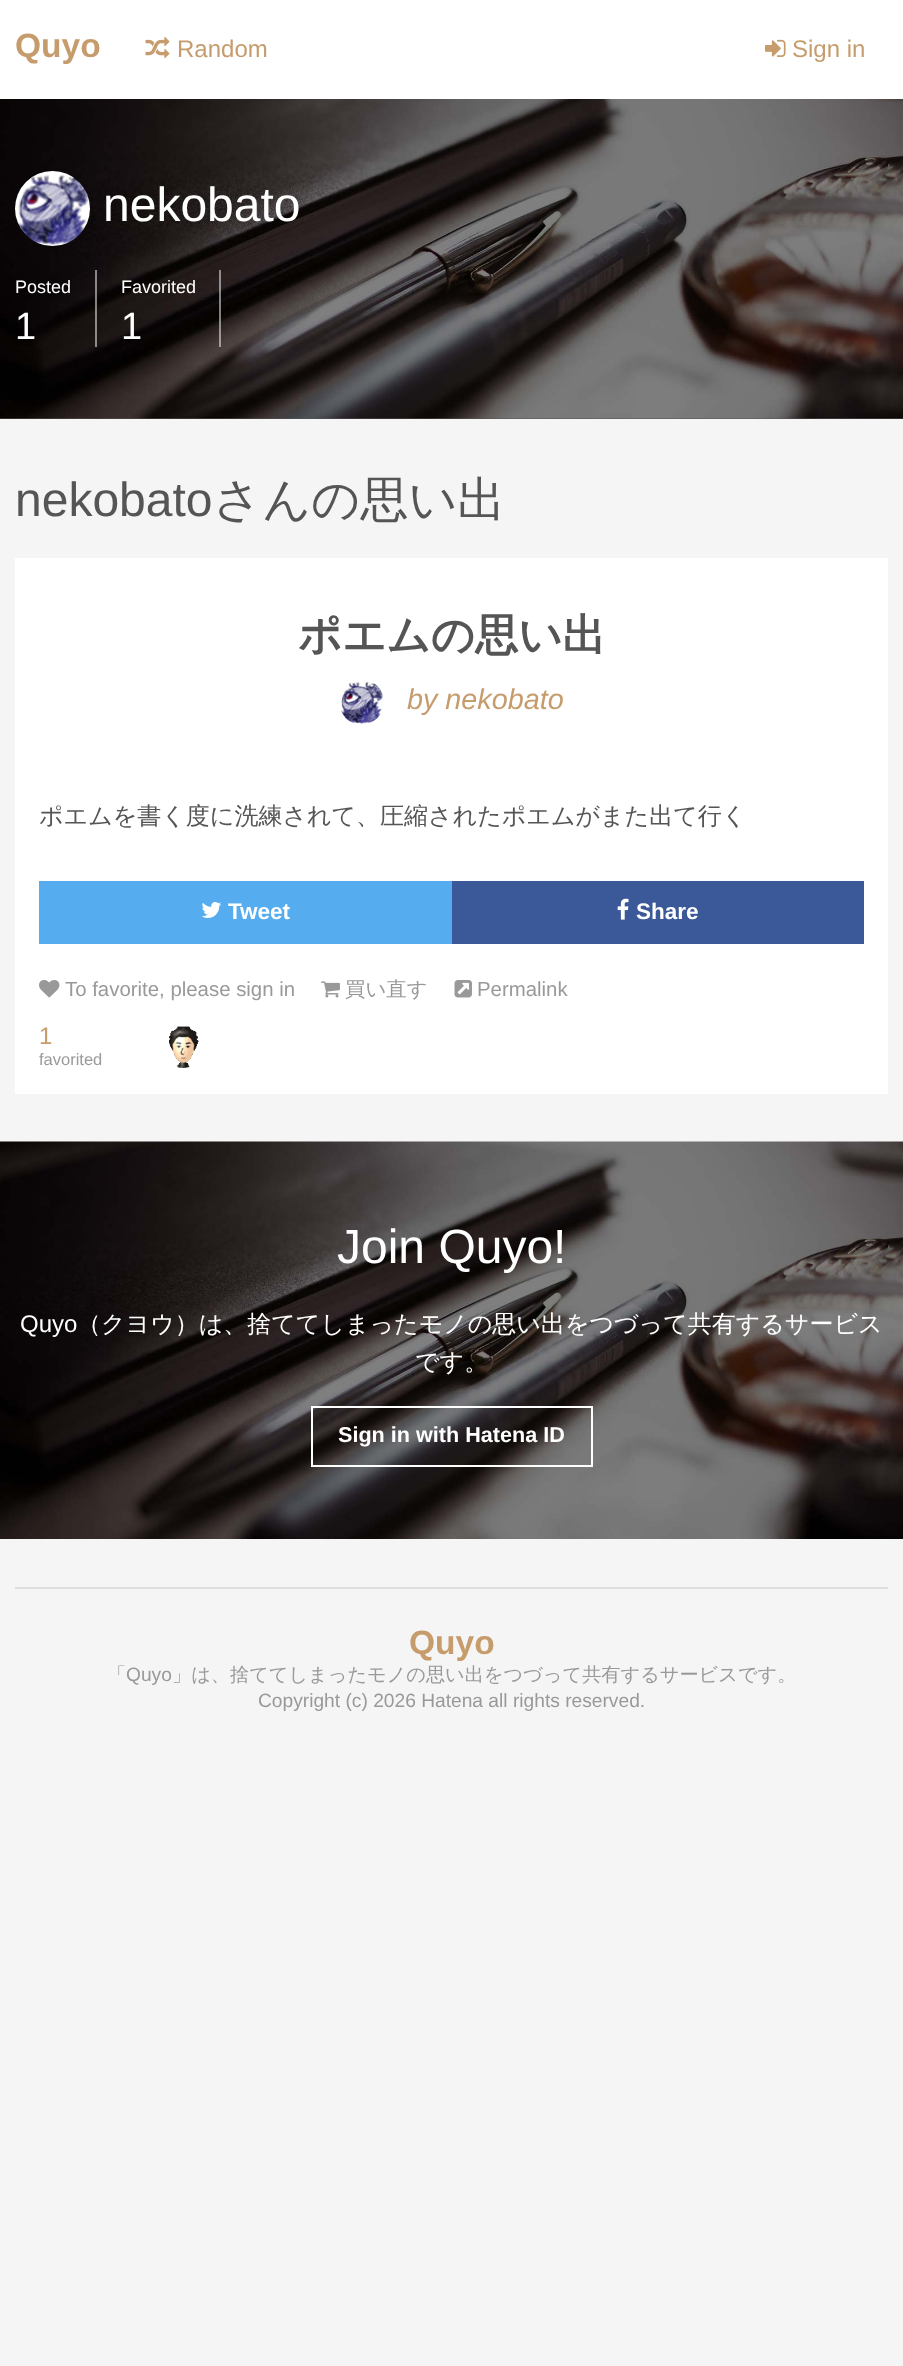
<svg xmlns="http://www.w3.org/2000/svg" width="903" height="2366" viewBox="0 0 903 2366">
  <style>
    .t1 { font: bold 33.5px Liberation Sans; fill: #c69c6d; }
    .t2 { font: 24px Liberation Sans; fill: #c69c6d; }
    .t3 { font: 48px Liberation Sans; fill: #fff; }
    .t4 { font: 18px Liberation Sans; fill: #fff; }
    .t5 { font: 38px Liberation Sans; fill: #fff; }
    .t6 { font: 48px Liberation Sans; fill: #555; }
    .t7 { font: 500 48px WenQuanYi Zen Hei; fill: #555; }
    .t8 { font: bold 43.25px WenQuanYi Zen Hei; fill: #555; }
    .t9 { font: italic 28.75px Liberation Sans; fill: #c69c6d; }
    .t10 { font: 500 24px WenQuanYi Zen Hei; fill: #555; }
    .t11 { font: bold 22.5px Liberation Sans; fill: #fff; }
    .t12 { font: 20.4px Liberation Sans; fill: #999; }
    .t13 { font: 500 20.4px WenQuanYi Zen Hei; fill: #999; }
    .t14 { font: 16.5px Liberation Sans; fill: #999; }
    .t15 { font: 24px Liberation Sans; fill: #fff; }
    .t16 { font: 500 24px WenQuanYi Zen Hei; fill: #fff; }
    .t17 { font: bold 21.6px Liberation Sans; fill: #fff; }
    .t18 { font: 500 19.2px WenQuanYi Zen Hei; fill: #999; }
    .t19 { font: 19.2px Liberation Sans; fill: #999; }
  </style>
  <rect width="100%" height="100%" fill="#f5f5f5"/>
  <rect x="0" y="0" width="903" height="99" fill="#fff"/>
  <text x="15" y="57" class="t1">Quyo</text>
  <image x="145" y="36" width="25" height="23" href="images/1.png"/>
  <text x="177" y="57" class="t2">Random</text>
  <image x="765" y="39" width="21" height="18" href="images/2.png"/>
  <text x="792" y="57" class="t2">Sign in</text>
  <rect x="0" y="418" width="903" height="1" fill="#555"/>
  <image x="0" y="99" width="903" height="320" href="images/3.png"/>
  <image x="15" y="171" width="75" height="75" href="images/4.png"/>
  <text x="103" y="221" class="t3">nekobato</text>
  <rect x="95" y="270" width="2" height="77" fill="#ffffff80"/>
  <text x="15" y="293" class="t4">Posted</text>
  <text x="15" y="339" class="t5">1</text>
  <rect x="219" y="270" width="2" height="77" fill="#ffffff80"/>
  <text x="121" y="293" class="t4">Favorited</text>
  <text x="121" y="339" class="t5">1</text>
  <text x="15" y="516" class="t6">nekobato</text>
  <text x="213" y="516" class="t7">さんの思い出</text>
  <rect x="15" y="558" width="873" height="536" fill="#fff"/>
  <text x="298" y="650" class="t8">ポエムの思い出</text>
  <image x="341" y="682" width="43" height="42" href="images/5.png"/>
  <text x="407" y="709" class="t9">by nekobato</text>
  <text x="39" y="824" class="t10">ポエムを書く度に洗練されて、圧縮されたポエムがまた出て行く</text>
  <rect x="39" y="881" width="413" height="63" fill="#55acee"/>
  <image x="201" y="902" width="20" height="16" href="images/6.png"/>
  <text x="228" y="919" class="t11">Tweet</text>
  <rect x="452" y="881" width="412" height="63" fill="#3b5998"/>
  <image x="617" y="898" width="12" height="22" href="images/7.png"/>
  <text x="636" y="919" class="t11">Share</text>
  <image x="39" y="980" width="21" height="18" href="images/8.png"/>
  <text x="65" y="996" class="t12">To favorite, please sign in</text>
  <image x="321" y="981" width="19" height="17" href="images/9.png"/>
  <text x="345" y="996" class="t13">買い直す</text>
  <image x="454" y="980" width="18" height="18" href="images/10.png"/>
  <text x="477" y="996" class="t12">Permalink</text>
  <text x="39" y="1044" class="t2">1</text>
  <text x="39" y="1065" class="t14">favorited</text>
  <image x="169" y="1026" width="30" height="42" href="images/11.png"/>
  <image x="0" y="1141" width="903" height="398" href="images/12.png"/>
  <text x="337" y="1263" class="t3">Join Quyo!</text>
  <text x="20" y="1332" class="t15">Quyo</text>
  <text x="77" y="1332" class="t16">（クヨウ）は、捨ててしまったモノの思い出をつづって共有するサービス</text>
  <text x="415" y="1370" class="t16">です。</text>
  <rect x="312" y="1407" width="280" height="59" fill="none" stroke="#fff" stroke-width="2"/>
  <text x="338" y="1442" class="t17">Sign in with Hatena ID</text>
  <rect x="15" y="1587" width="873" height="2" fill="#ddd"/>
  <text x="409" y="1654" class="t1">Quyo</text>
  <text x="107" y="1681" class="t18">「</text>
  <text x="126" y="1681" class="t19">Quyo</text>
  <text x="172" y="1681" class="t18">」は、捨ててしまったモノの思い出をつづって共有するサービスです。</text>
  <text x="258" y="1707" class="t19">Copyright (c) 2026 Hatena all rights reserved.</text>
</svg>
